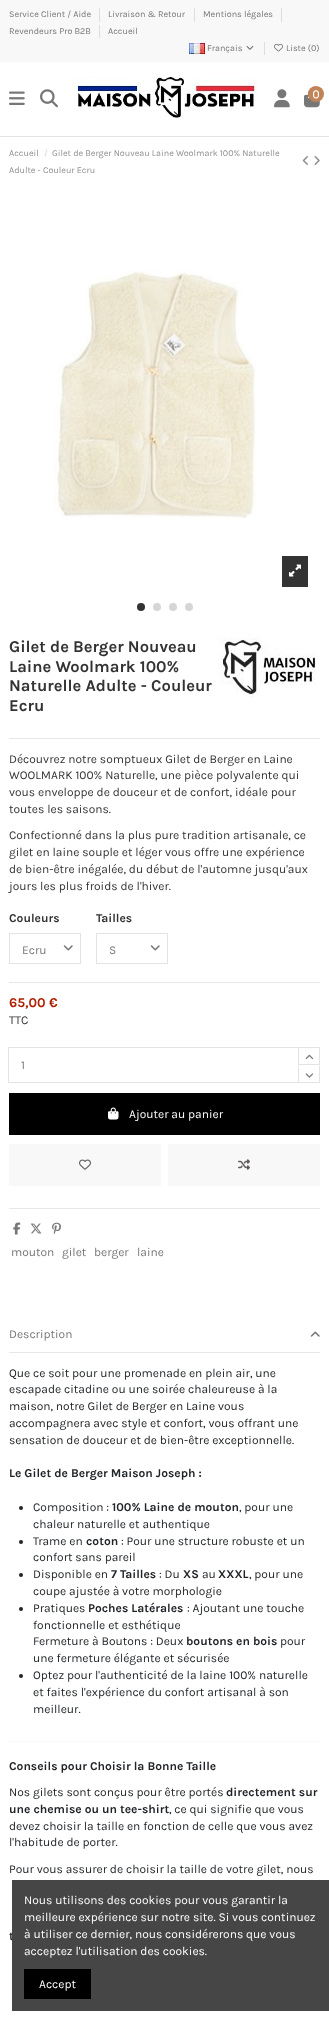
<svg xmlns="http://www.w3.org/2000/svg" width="329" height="2023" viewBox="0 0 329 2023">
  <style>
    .t1 { font: 9px Karla; fill: #777; }
    .t2 { font: 9px Karla; fill: #8f8f8f; }
    .t3 { font: 9px Karla; fill: #d2d2d2; }
    .t4 { font: bold 16.5px Karla; fill: #333; }
    .t5 { font: 12px Karla; fill: #333; }
    .t6 { font: bold 12px Karla; fill: #333; }
    .t7 { font: 12px Karla; fill: #777; }
    .t8 { font: bold 13.5px Karla; fill: #ad1f00; }
    .t9 { font: 12px Karla; fill: #fff; }
    .t10 { font: 12px Karla; fill: #212529; }
    .t11 { font: bold 12px Karla; fill: #212529; }
  </style>
  <rect width="100%" height="100%" fill="#fff"/>
  <rect x="0" y="0" width="329" height="62" fill="#f8f8f8"/>
  <text x="9" y="17" class="t1">Service Client / Aide</text>
  <rect x="99" y="8" width="1" height="14" fill="#dedede"/>
  <text x="108" y="17" class="t1">Livraison &amp; Retour</text>
  <rect x="194" y="8" width="1" height="14" fill="#dedede"/>
  <text x="203" y="17" class="t1">Mentions légales</text>
  <rect x="281" y="8" width="1" height="14" fill="#dedede"/>
  <text x="9" y="34" class="t1">Revendeurs Pro B2B</text>
  <rect x="99" y="25" width="1" height="13" fill="#dedede"/>
  <text x="108" y="34" class="t1">Accueil</text>
  <image x="189" y="43" width="16" height="11" href="images/1.png"/>
  <text x="207" y="51" class="t1">Français</text>
  <image x="246" y="46" width="8" height="4" href="images/2.png"/>
  <rect x="264" y="42" width="1" height="13" fill="#dedede"/>
  <image x="274" y="43" width="9" height="9" href="images/3.png"/>
  <text x="286" y="51" class="t1">Liste (0)</text>
  <rect x="0" y="136" width="329" height="1" fill="#e3e3e3"/>
  <image x="9" y="91" width="16" height="14" href="images/4.png"/>
  <image x="40" y="89" width="18" height="19" href="images/5.png"/>
  <image x="73" y="77" width="184" height="43" href="images/6.png"/>
  <image x="274" y="89" width="16" height="19" href="images/7.png"/>
  <image x="304" y="89" width="16" height="19" href="images/9.png"/>
  <circle cx="316" cy="94" r="8" fill="#c08457"/>
  <image x="313" y="90" width="6" height="9" href="images/8.png"/>
  <text x="9" y="156" class="t2">Accueil</text>
  <text x="44" y="156" class="t3">/</text>
  <text x="52" y="156" class="t2">Gilet de Berger Nouveau Laine Woolmark 100% Naturelle</text>
  <text x="9" y="173" class="t2">Adulte - Couleur Ecru</text>
  <image x="302" y="156" width="6" height="9" href="images/10.png"/>
  <image x="314" y="156" width="6" height="9" href="images/11.png"/>
  <image x="52" y="270" width="205" height="249" href="images/12.png"/>
  <rect x="282" y="556" width="26" height="31" fill="#333"/>
  <image x="289" y="564" width="12" height="13" href="images/13.png"/>
  <circle cx="141" cy="607" r="4" fill="#333"/>
  <circle cx="157" cy="607" r="4" fill="#d6d6d6"/>
  <circle cx="173" cy="607" r="4" fill="#d6d6d6"/>
  <circle cx="189" cy="607" r="4" fill="#d6d6d6"/>
  <rect x="9" y="738" width="311" height="1" fill="#e7e7e7"/>
  <text x="9" y="652" class="t4">Gilet de Berger Nouveau</text>
  <text x="9" y="672" class="t4">Laine Woolmark 100%</text>
  <text x="9" y="691" class="t4">Naturelle Adulte - Couleur</text>
  <text x="9" y="711" class="t4">Ecru</text>
  <image x="220" y="637" width="96" height="60" href="images/14.png"/>
  <text x="9" y="763" class="t5">Découvrez notre somptueux Gilet de Berger en Laine</text>
  <text x="9" y="779" class="t5">WOOLMARK 100% Naturelle, une pièce polyvalente qui</text>
  <text x="9" y="796" class="t5">vous enveloppe de douceur et de confort, idéale pour</text>
  <text x="9" y="813" class="t5">toutes les saisons.</text>
  <text x="9" y="839" class="t5">Confectionné dans la plus pure tradition artisanale, ce</text>
  <text x="9" y="856" class="t5">gilet en laine souple et léger vous offre une expérience</text>
  <text x="9" y="873" class="t5">de bien-être inégalée, du début de l'automne jusqu'aux</text>
  <text x="9" y="890" class="t5">jours les plus froids de l'hiver.</text>
  <text x="9" y="922" class="t6">Couleurs</text>
  <image x="63" y="945" width="10" height="6" href="images/15.png"/>
  <rect x="9.5" y="933.5" width="71" height="30" fill="none" stroke="#e3e3e3"/>
  <text x="22" y="954" class="t7">Ecru</text>
  <text x="96" y="922" class="t6">Tailles</text>
  <image x="150" y="945" width="10" height="6" href="images/15.png"/>
  <rect x="96.5" y="933.5" width="71" height="30" fill="none" stroke="#e3e3e3"/>
  <text x="109" y="954" class="t7">S</text>
  <rect x="9" y="982" width="311" height="1" fill="#e7e7e7"/>
  <text x="9" y="1007" class="t8">65,00 €</text>
  <text x="9" y="1024" class="t5">TTC</text>
  <rect x="8.5" y="1047.5" width="291" height="35" fill="none" stroke="#e3e3e3"/>
  <text x="21" y="1069" class="t7">1</text>
  <rect x="299" y="1048" width="1" height="16" fill="#fff"/>
  <rect x="298.5" y="1047.5" width="21" height="17" fill="none" stroke="#e3e3e3"/>
  <image x="305" y="1054" width="9" height="6" href="images/16.png"/>
  <rect x="299" y="1065" width="1" height="17" fill="#fff"/>
  <path d="M320 1065V1083L319 1082V1066Z" fill="#e3e3e3"/>
  <rect x="298" y="1082" width="22" height="1" fill="#e3e3e3"/>
  <path d="M298 1083V1065L299 1066V1082Z" fill="#e3e3e3"/>
  <image x="305" y="1073" width="8" height="5" href="images/17.png"/>
  <rect x="9" y="1093" width="311" height="42" fill="#000"/>
  <image x="108" y="1107" width="11" height="13" href="images/18.png"/>
  <text x="129" y="1118" class="t9">Ajouter au panier</text>
  <rect x="9" y="1144" width="152" height="42" fill="#f8f8f8"/>
  <image x="79" y="1159" width="12" height="11" href="images/19.png"/>
  <rect x="168" y="1144" width="152" height="42" fill="#f8f8f8"/>
  <image x="238" y="1159" width="12" height="11" href="images/20.png"/>
  <rect x="9" y="1208" width="311" height="1" fill="#e7e7e7"/>
  <image x="13" y="1222" width="8" height="13" href="images/21.png"/>
  <image x="30" y="1223" width="12" height="11" href="images/22.png"/>
  <image x="52" y="1222" width="9" height="13" href="images/23.png"/>
  <text x="11" y="1256" class="t7">mouton</text>
  <text x="62" y="1256" class="t7">gilet</text>
  <text x="94" y="1256" class="t7">berger</text>
  <text x="137" y="1256" class="t7">laine</text>
  <rect x="9" y="1352" width="311" height="1" fill="#e7e7e7"/>
  <text x="9" y="1338" class="t7">Description</text>
  <image x="310" y="1331" width="10" height="6" href="images/24.png"/>
  <text x="9" y="1377" class="t10">Que ce soit pour une promenade en plein air, une</text>
  <text x="9" y="1393" class="t10">escapade citadine ou une soirée chaleureuse à la</text>
  <text x="9" y="1410" class="t10">maison, notre Gilet de Berger en Laine vous</text>
  <text x="9" y="1427" class="t10">accompagnera avec style et confort, vous offrant une</text>
  <text x="9" y="1444" class="t10">sensation de douceur et de bien-être exceptionnelle.</text>
  <text x="9" y="1477" class="t11">Le Gilet de Berger Maison Joseph :</text>
  <circle cx="21" cy="1508" r="2" fill="#212529"/>
  <text x="33" y="1511" class="t10">Composition :</text>
  <text x="112" y="1511" class="t11">100% Laine de mouton</text>
  <text x="239" y="1511" class="t10">, pour une</text>
  <text x="33" y="1528" class="t10">chaleur naturelle et authentique</text>
  <circle cx="21" cy="1542" r="2" fill="#212529"/>
  <text x="33" y="1545" class="t10">Trame en</text>
  <text x="86" y="1545" class="t11">coton</text>
  <text x="121" y="1545" class="t10">: Pour une structure robuste et un</text>
  <text x="33" y="1561" class="t10">confort sans pareil</text>
  <circle cx="21" cy="1575" r="2" fill="#212529"/>
  <text x="33" y="1578" class="t10">Disponible en</text>
  <text x="111" y="1578" class="t11">7 Tailles</text>
  <text x="159" y="1578" class="t10">: Du</text>
  <text x="183" y="1578" class="t11">XS</text>
  <text x="202" y="1578" class="t10">au</text>
  <text x="218" y="1578" class="t11">XXXL</text>
  <text x="249" y="1578" class="t10">, pour une</text>
  <text x="33" y="1595" class="t10">coupe ajustée à votre morphologie</text>
  <circle cx="21" cy="1609" r="2" fill="#212529"/>
  <text x="33" y="1612" class="t10">Pratiques</text>
  <text x="88" y="1612" class="t11">Poches Latérales</text>
  <text x="187" y="1612" class="t10">: Ajoutant une touche</text>
  <text x="33" y="1629" class="t10">fonctionnelle et esthétique</text>
  <text x="33" y="1645" class="t10">Fermeture à Boutons : Deux</text>
  <text x="186" y="1645" class="t11">boutons en bois</text>
  <text x="280" y="1645" class="t10">pour</text>
  <text x="33" y="1662" class="t10">une fermeture élégante et sécurisée</text>
  <circle cx="21" cy="1676" r="2" fill="#212529"/>
  <text x="33" y="1679" class="t10">Optez pour l'authenticité de la laine 100% naturelle</text>
  <text x="33" y="1696" class="t10">et faites l'expérience du confort artisanal à son</text>
  <text x="33" y="1713" class="t10">meilleur.</text>
  <rect x="9" y="1741" width="311" height="1" fill="#f9f9f9"/>
  <text x="9" y="1770" class="t11">Conseils pour Choisir la Bonne Taille</text>
  <text x="9" y="1796" class="t10">Nos gilets sont conçus pour être portés</text>
  <text x="226" y="1796" class="t11">directement sur</text>
  <text x="9" y="1813" class="t11">une chemise ou un tee-shirt</text>
  <text x="169" y="1813" class="t10">, ce qui signifie que vous</text>
  <text x="9" y="1830" class="t10">devez choisir la taille en fonction de celle que vous avez</text>
  <text x="9" y="1846" class="t10">l'habitude de porter.</text>
  <text x="9" y="1873" class="t10">Pour vous assurer de choisir la taille de votre gilet, nous</text>
  <text x="9" y="1940" class="t11">t</text>
  <rect x="12" y="1880" width="317" height="131" fill="#464646"/>
  <text x="24" y="1904" class="t9">Nous utilisons des cookies pour vous garantir la</text>
  <text x="24" y="1921" class="t9">meilleure expérience sur notre site. Si vous continuez</text>
  <text x="24" y="1938" class="t9">à utiliser ce dernier, nous considérerons que vous</text>
  <text x="24" y="1955" class="t9">acceptez l'utilisation des cookies.</text>
  <rect x="24" y="1969" width="67" height="30" fill="#000"/>
  <text x="39" y="1988" class="t9">Accept</text>
</svg>
